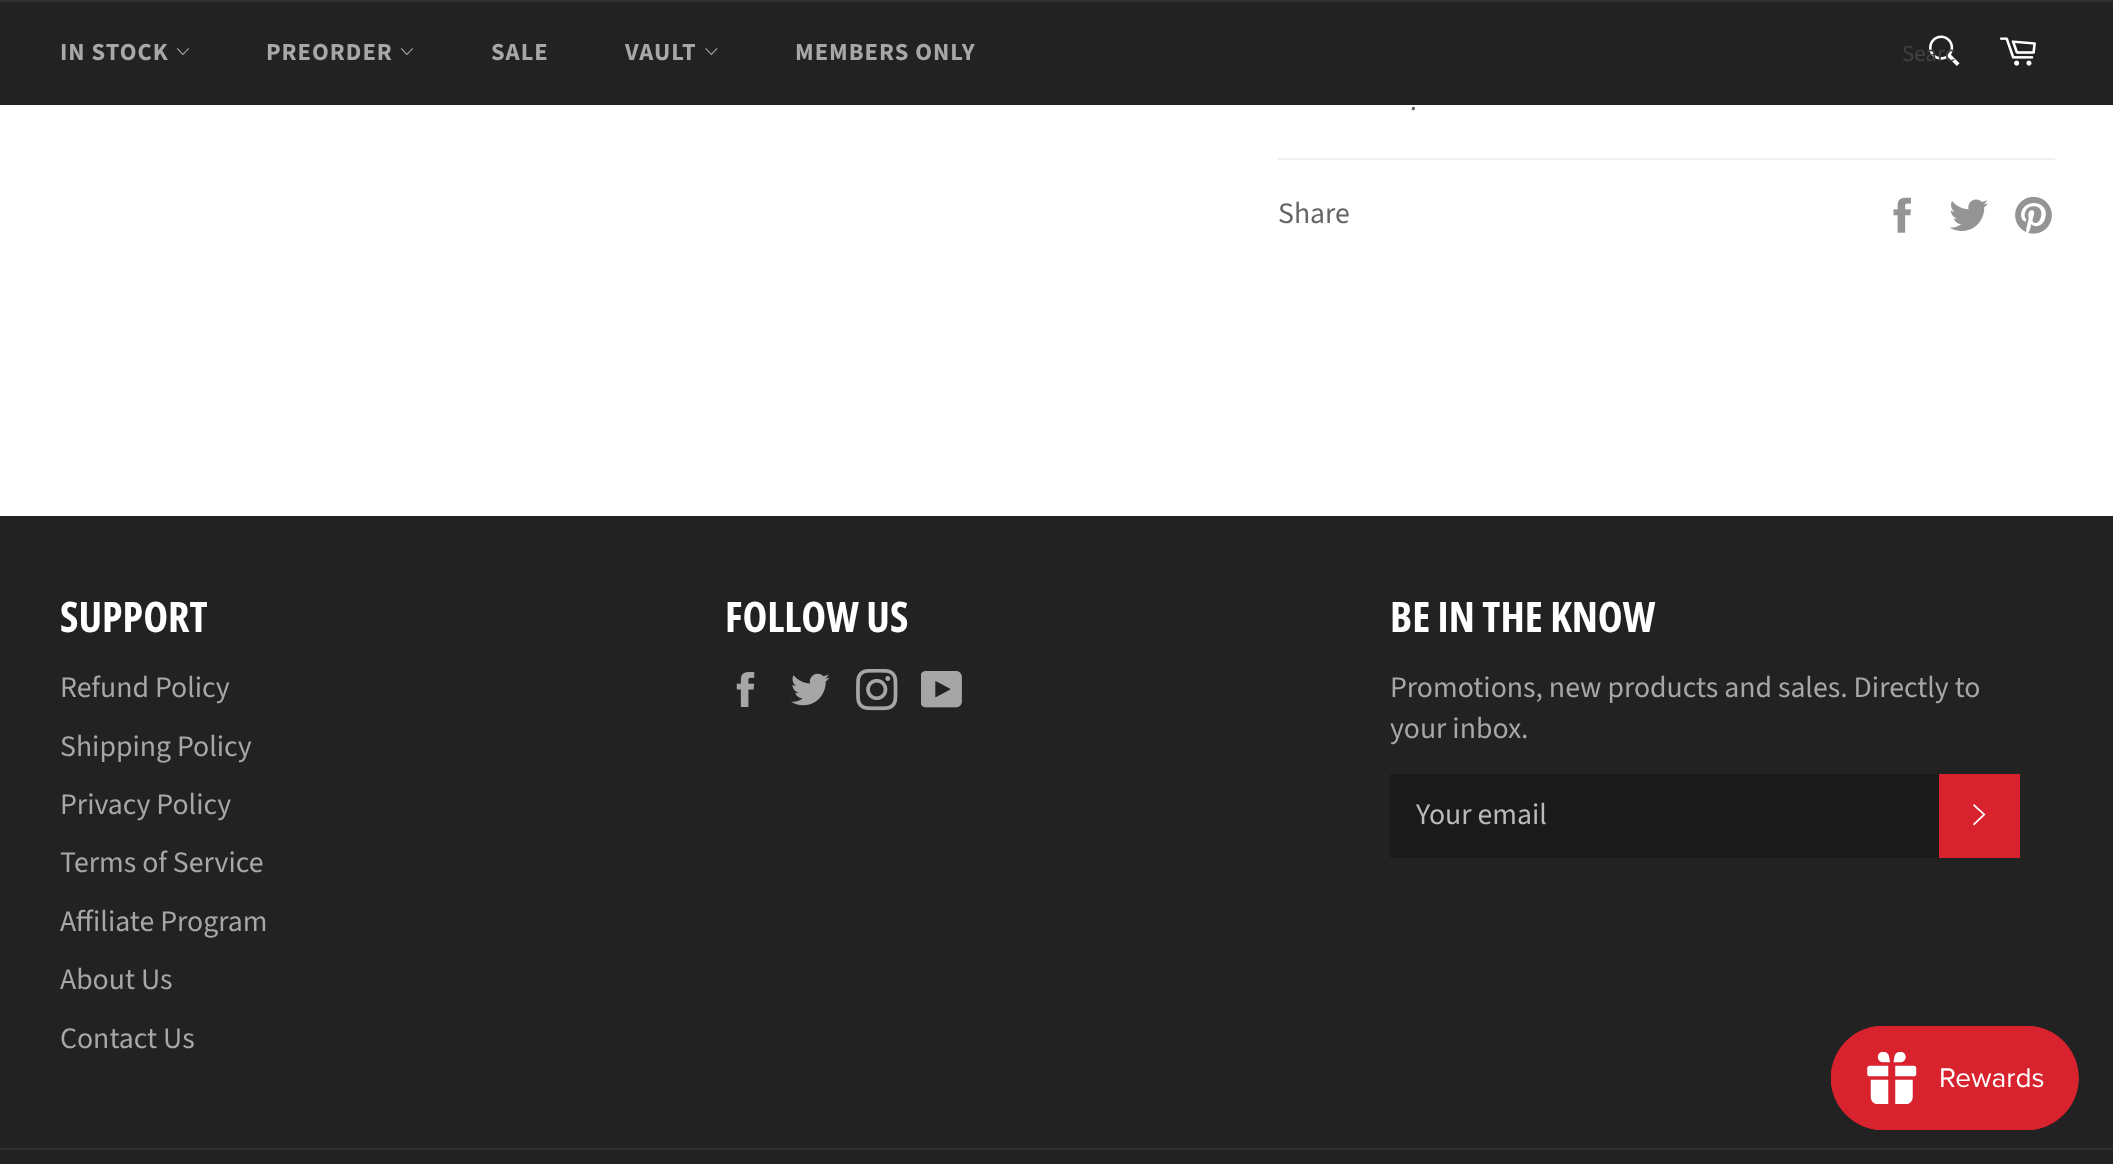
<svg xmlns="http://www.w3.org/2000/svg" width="2113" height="1164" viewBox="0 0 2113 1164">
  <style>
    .t1 { font: bold 24.5px Source Sans Pro; letter-spacing: 1px; fill: #a7a7a7; }
    .t2 { font: 23px Source Sans Pro; fill: #404040; }
    .t3 { font: italic 29.75px Source Sans Pro; fill: #666; }
    .t4 { font: 29.75px Source Sans Pro; fill: #666; }
    .t5 { font: bold 42px Open Sans Condensed; fill: #fff; }
    .t6 { font: 29.75px Source Sans Pro; fill: #a7a7a7; }
    .t7 { font: 29.75px Source Sans Pro; fill: #bababa; }
  </style>
  <rect width="100%" height="100%" fill="#fff"/>
  <rect x="0" y="2" width="2113" height="103" fill="#222"/>
  <rect x="0" y="0" width="2113" height="2" fill="#2f2f2f"/>
  <text x="60" y="60" class="t1">IN STOCK</text>
  <image x="176" y="48" width="13" height="8" href="images/1.png"/>
  <text x="266" y="60" class="t1">PREORDER</text>
  <image x="400" y="48" width="13" height="8" href="images/1.png"/>
  <text x="491" y="60" class="t1">SALE</text>
  <text x="625" y="60" class="t1">VAULT</text>
  <image x="705" y="48" width="13" height="8" href="images/2.png"/>
  <text x="795" y="60" class="t1">MEMBERS ONLY</text>
  <image x="1929" y="35" width="31" height="31" href="images/3.png"/>
  <text x="1902" y="61" class="t2">Searc</text>
  <image x="1999" y="37" width="37" height="29" href="images/4.png"/>
  <text x="1411" y="110" class="t3">.</text>
  <rect x="1278" y="158" width="777" height="2" fill="#f0f0f0"/>
  <text x="1278" y="223" class="t4">Share</text>
  <image x="1893" y="197" width="18" height="36" href="images/5.png"/>
  <image x="1949" y="199" width="39" height="32" href="images/6.png"/>
  <image x="2015" y="196" width="37" height="38" href="images/7.png"/>
  <rect x="0" y="516" width="2113" height="648" fill="#222"/>
  <text x="60" y="632" class="t5">SUPPORT</text>
  <text x="60" y="697" class="t6">Refund Policy</text>
  <text x="60" y="756" class="t6">Shipping Policy</text>
  <text x="60" y="814" class="t6">Privacy Policy</text>
  <text x="60" y="872" class="t6">Terms of Service</text>
  <text x="60" y="931" class="t6">Affiliate Program</text>
  <text x="60" y="989" class="t6">About Us</text>
  <text x="60" y="1048" class="t6">Contact Us</text>
  <text x="725" y="632" class="t5">FOLLOW US</text>
  <image x="736" y="672" width="19" height="35" href="images/8.png"/>
  <image x="791" y="673" width="39" height="33" href="images/9.png"/>
  <image x="856" y="669" width="42" height="42" href="images/10.png"/>
  <image x="921" y="671" width="41" height="37" href="images/11.png"/>
  <text x="1390" y="632" class="t5">BE IN THE KNOW</text>
  <text x="1390" y="697" class="t6">Promotions, new products and sales. Directly to</text>
  <text x="1390" y="738" class="t6">your inbox.</text>
  <rect x="1390" y="774" width="549" height="84" fill="#1a1a1a"/>
  <text x="1416" y="824" class="t7">Your email</text>
  <rect x="1939" y="774" width="81" height="84" fill="#d8232f"/>
  <path d="M1973 805.5L1974 804L1985.5 814.5L1974 825.5L1973 824L1983 814.5Z" fill="#fff"/>
  <rect x="0" y="1148" width="2113" height="2" fill="#2f2f2f"/>
  <image x="1830" y="1025" width="249" height="106" href="images/12.png"/>
</svg>
